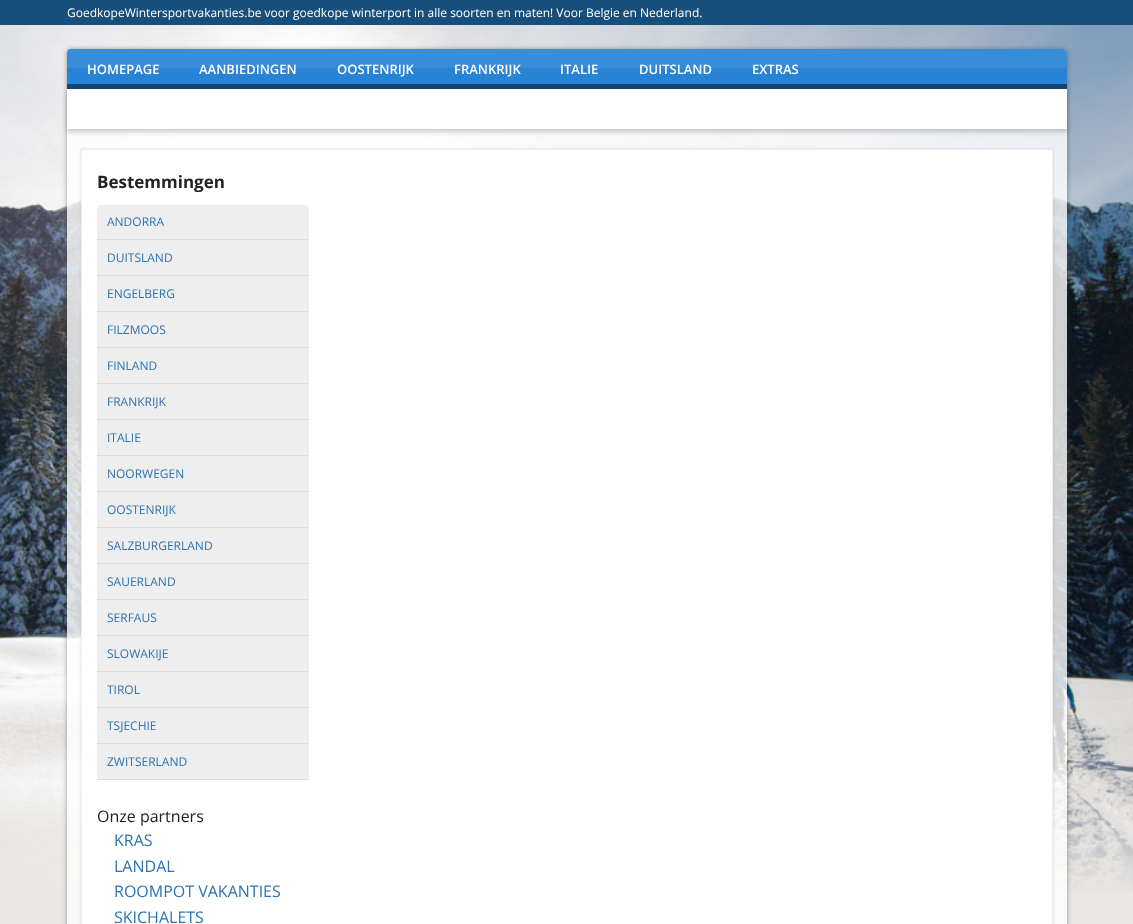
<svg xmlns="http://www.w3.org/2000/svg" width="1133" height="924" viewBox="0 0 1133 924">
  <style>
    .t1 { font: 12px Open Sans; fill: #fff; }
    .t2 { font: 600 13px Open Sans; fill: #fff; }
    .t3 { font: bold 17px Open Sans; fill: #222; }
    .t4 { font: 12px Open Sans; fill: #2e73b0; }
    .t5 { font: 16px Open Sans; fill: #222; }
    .t6 { font: 16px Open Sans; fill: #2e73b0; }
  </style>
  <defs>
    <clipPath id="clip1"><path d="M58 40H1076V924H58ZM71 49H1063C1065 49 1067 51 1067 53V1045C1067 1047 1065 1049 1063 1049H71C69 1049 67 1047 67 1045V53C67 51 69 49 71 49Z" clip-rule="evenodd"/></clipPath>
  </defs>
  <rect width="100%" height="100%" fill="#e8e7e3"/>
  <image x="0" y="25" width="1133" height="867" href="images/1.png"/>
  <rect x="0" y="0" width="1133" height="25" fill="#184f7a"/>
  <text x="67" y="17" class="t1">GoedkopeWintersportvakanties.be voor goedkope winterport in alle soorten en maten! Voor Belgie en Nederland.</text>
  <g clip-path="url(#clip1)">
    <rect x="67" y="49" width="1000" height="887" rx="4" fill="#32323273" filter="blur(2.5px)"/>
  </g>
  <rect x="67" y="49" width="1000" height="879" rx="4" fill="#ffffffcc"/>
  <image x="67" y="49" width="1000" height="35" href="images/2.png"/>
  <rect x="67" y="84" width="1000" height="5" fill="#144470"/>
  <text x="87" y="74" class="t2">HOMEPAGE</text>
  <text x="199" y="74" class="t2">AANBIEDINGEN</text>
  <text x="337" y="74" class="t2">OOSTENRIJK</text>
  <text x="454" y="74" class="t2">FRANKRIJK</text>
  <text x="560" y="74" class="t2">ITALIE</text>
  <text x="639" y="74" class="t2">DUITSLAND</text>
  <text x="752" y="74" class="t2">EXTRAS</text>
  <rect x="67" y="92" width="1000" height="40" fill="#32323240" filter="blur(2.5px)"/>
  <rect x="67" y="89" width="1000" height="40" fill="#fff"/>
  <rect x="81" y="149" width="972" height="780" fill="#32323226" filter="blur(1.5px)"/>
  <rect x="81.5" y="149.5" width="971" height="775" fill="#fff" stroke="#eee"/>
  <text x="97" y="188" class="t3">Bestemmingen</text>
  <rect x="97" y="205" width="212" height="575" rx="4" fill="#eee"/>
  <rect x="97" y="239" width="212" height="1" fill="#ddd"/>
  <text x="107" y="226" class="t4">ANDORRA</text>
  <rect x="97" y="275" width="212" height="1" fill="#ddd"/>
  <text x="107" y="262" class="t4">DUITSLAND</text>
  <rect x="97" y="311" width="212" height="1" fill="#ddd"/>
  <text x="107" y="298" class="t4">ENGELBERG</text>
  <rect x="97" y="347" width="212" height="1" fill="#ddd"/>
  <text x="107" y="334" class="t4">FILZMOOS</text>
  <rect x="97" y="383" width="212" height="1" fill="#ddd"/>
  <text x="107" y="370" class="t4">FINLAND</text>
  <rect x="97" y="419" width="212" height="1" fill="#ddd"/>
  <text x="107" y="406" class="t4">FRANKRIJK</text>
  <rect x="97" y="455" width="212" height="1" fill="#ddd"/>
  <text x="107" y="442" class="t4">ITALIE</text>
  <rect x="97" y="491" width="212" height="1" fill="#ddd"/>
  <text x="107" y="478" class="t4">NOORWEGEN</text>
  <rect x="97" y="527" width="212" height="1" fill="#ddd"/>
  <text x="107" y="514" class="t4">OOSTENRIJK</text>
  <rect x="97" y="563" width="212" height="1" fill="#ddd"/>
  <text x="107" y="550" class="t4">SALZBURGERLAND</text>
  <rect x="97" y="599" width="212" height="1" fill="#ddd"/>
  <text x="107" y="586" class="t4">SAUERLAND</text>
  <rect x="97" y="635" width="212" height="1" fill="#ddd"/>
  <text x="107" y="622" class="t4">SERFAUS</text>
  <rect x="97" y="671" width="212" height="1" fill="#ddd"/>
  <text x="107" y="658" class="t4">SLOWAKIJE</text>
  <rect x="97" y="707" width="212" height="1" fill="#ddd"/>
  <text x="107" y="694" class="t4">TIROL</text>
  <rect x="97" y="743" width="212" height="1" fill="#ddd"/>
  <text x="107" y="730" class="t4">TSJECHIE</text>
  <rect x="97" y="779" width="212" height="1" fill="#ddd"/>
  <text x="107" y="766" class="t4">ZWITSERLAND</text>
  <text x="97" y="822" class="t5">Onze partners</text>
  <text x="114" y="846" class="t6">KRAS</text>
  <text x="114" y="872" class="t6">LANDAL</text>
  <text x="114" y="897" class="t6">ROOMPOT VAKANTIES</text>
  <text x="114" y="923" class="t6">SKICHALETS</text>
</svg>
